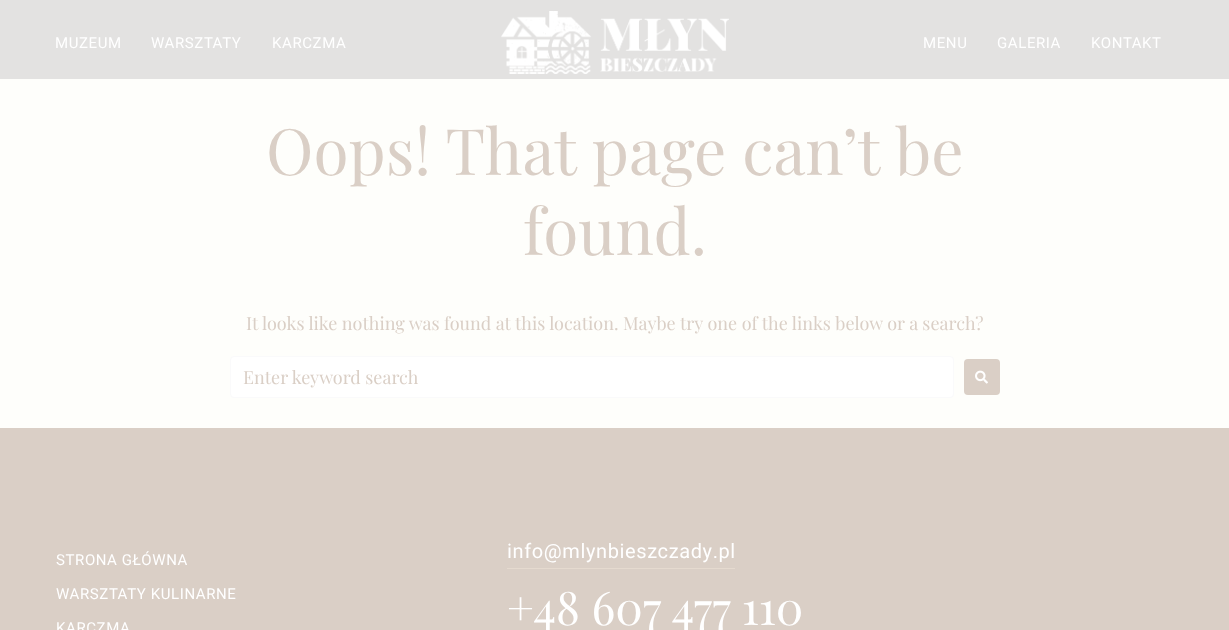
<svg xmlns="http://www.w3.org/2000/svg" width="1229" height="630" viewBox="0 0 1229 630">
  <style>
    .t1 { font: 15px Heebo; letter-spacing: 0.6px; fill: #fff; }
    .t2 { font: 64px Playfair Display; fill: #dacfc6; }
    .t3 { font: 18px Playfair Display; fill: #dacfc6; }
    .t4 { font: 20px Heebo; letter-spacing: 0.6px; fill: #fff; }
    .t5 { font: 46px Playfair Display; fill: #fff; }
  </style>
  <rect width="100%" height="100%" fill="#fefefb"/>
  <rect x="0" y="0" width="1229" height="79" fill="#e3e2e1"/>
  <text x="55" y="48" class="t1">MUZEUM</text>
  <text x="151" y="48" class="t1">WARSZTATY</text>
  <text x="272" y="48" class="t1">KARCZMA</text>
  <image x="501" y="11" width="228" height="63" href="images/1.png"/>
  <text x="923" y="48" class="t1">MENU</text>
  <text x="997" y="48" class="t1">GALERIA</text>
  <text x="1091" y="48" class="t1">KONTAKT</text>
  <text x="266" y="175" class="t2">Oops! That page can’t be</text>
  <text x="523" y="255" class="t2">found.</text>
  <text x="246" y="330" class="t3">It looks like nothing was found at this location. Maybe try one of the links below or a search?</text>
  <rect x="230.5" y="356.5" width="723" height="41" rx="3.5" fill="#fff" stroke="#fafafb"/>
  <text x="243" y="384" class="t3">Enter keyword search</text>
  <rect x="964" y="359" width="36" height="36" rx="4" fill="#dacfc6"/>
  <image x="975" y="370" width="13" height="14" href="images/2.png"/>
  <rect x="0" y="428" width="1229" height="202" fill="#dacfc6"/>
  <text x="56" y="565" class="t1">STRONA GŁÓWNA</text>
  <text x="56" y="599" class="t1">WARSZTATY KULINARNE</text>
  <text x="56" y="633" class="t1">KARCZMA</text>
  <rect x="507" y="568" width="228" height="1" fill="#e5dacf"/>
  <text x="507" y="558" class="t4">info@mlynbieszczady.pl</text>
  <text x="507" y="625" class="t5">+48 607 477 110</text>
</svg>
